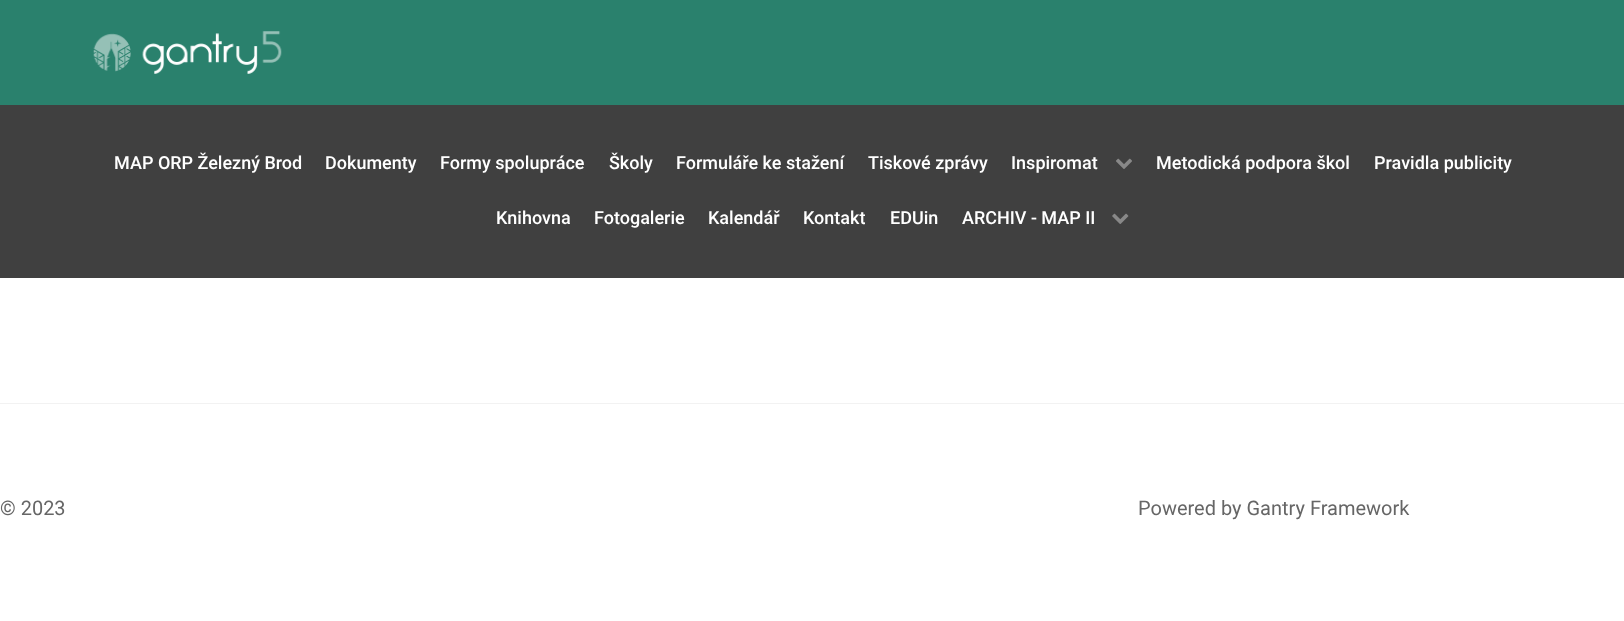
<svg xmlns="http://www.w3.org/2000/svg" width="1624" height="621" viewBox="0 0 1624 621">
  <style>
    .t1 { font: 500 18px Roboto; fill: #fff; }
    .t2 { font: 20px Roboto; fill: #666; }
  </style>
  <rect width="100%" height="100%" fill="#fff"/>
  <rect x="0" y="0" width="1624" height="105" fill="#2a816d"/>
  <image x="93" y="31" width="189" height="43" href="images/1.png"/>
  <rect x="0" y="105" width="1624" height="173" fill="#000000bf"/>
  <text x="114" y="169" class="t1">MAP ORP Železný Brod</text>
  <text x="325" y="169" class="t1">Dokumenty</text>
  <text x="440" y="169" class="t1">Formy spolupráce</text>
  <text x="609" y="169" class="t1">Školy</text>
  <text x="676" y="169" class="t1">Formuláře ke stažení</text>
  <text x="868" y="169" class="t1">Tiskové zprávy</text>
  <text x="1011" y="169" class="t1">Inspiromat</text>
  <image x="1116" y="158" width="16" height="11" href="images/2.png"/>
  <text x="1156" y="169" class="t1">Metodická podpora škol</text>
  <text x="1374" y="169" class="t1">Pravidla publicity</text>
  <text x="496" y="224" class="t1">Knihovna</text>
  <text x="594" y="224" class="t1">Fotogalerie</text>
  <text x="708" y="224" class="t1">Kalendář</text>
  <text x="803" y="224" class="t1">Kontakt</text>
  <text x="890" y="224" class="t1">EDUin</text>
  <text x="962" y="224" class="t1">ARCHIV - MAP II</text>
  <image x="1112" y="213" width="17" height="11" href="images/3.png"/>
  <rect x="0" y="403" width="1624" height="1" fill="#f2f2f2"/>
  <text x="0" y="515" class="t2">© 2023</text>
  <text x="1138" y="515" class="t2">Powered by Gantry Framework</text>
</svg>
